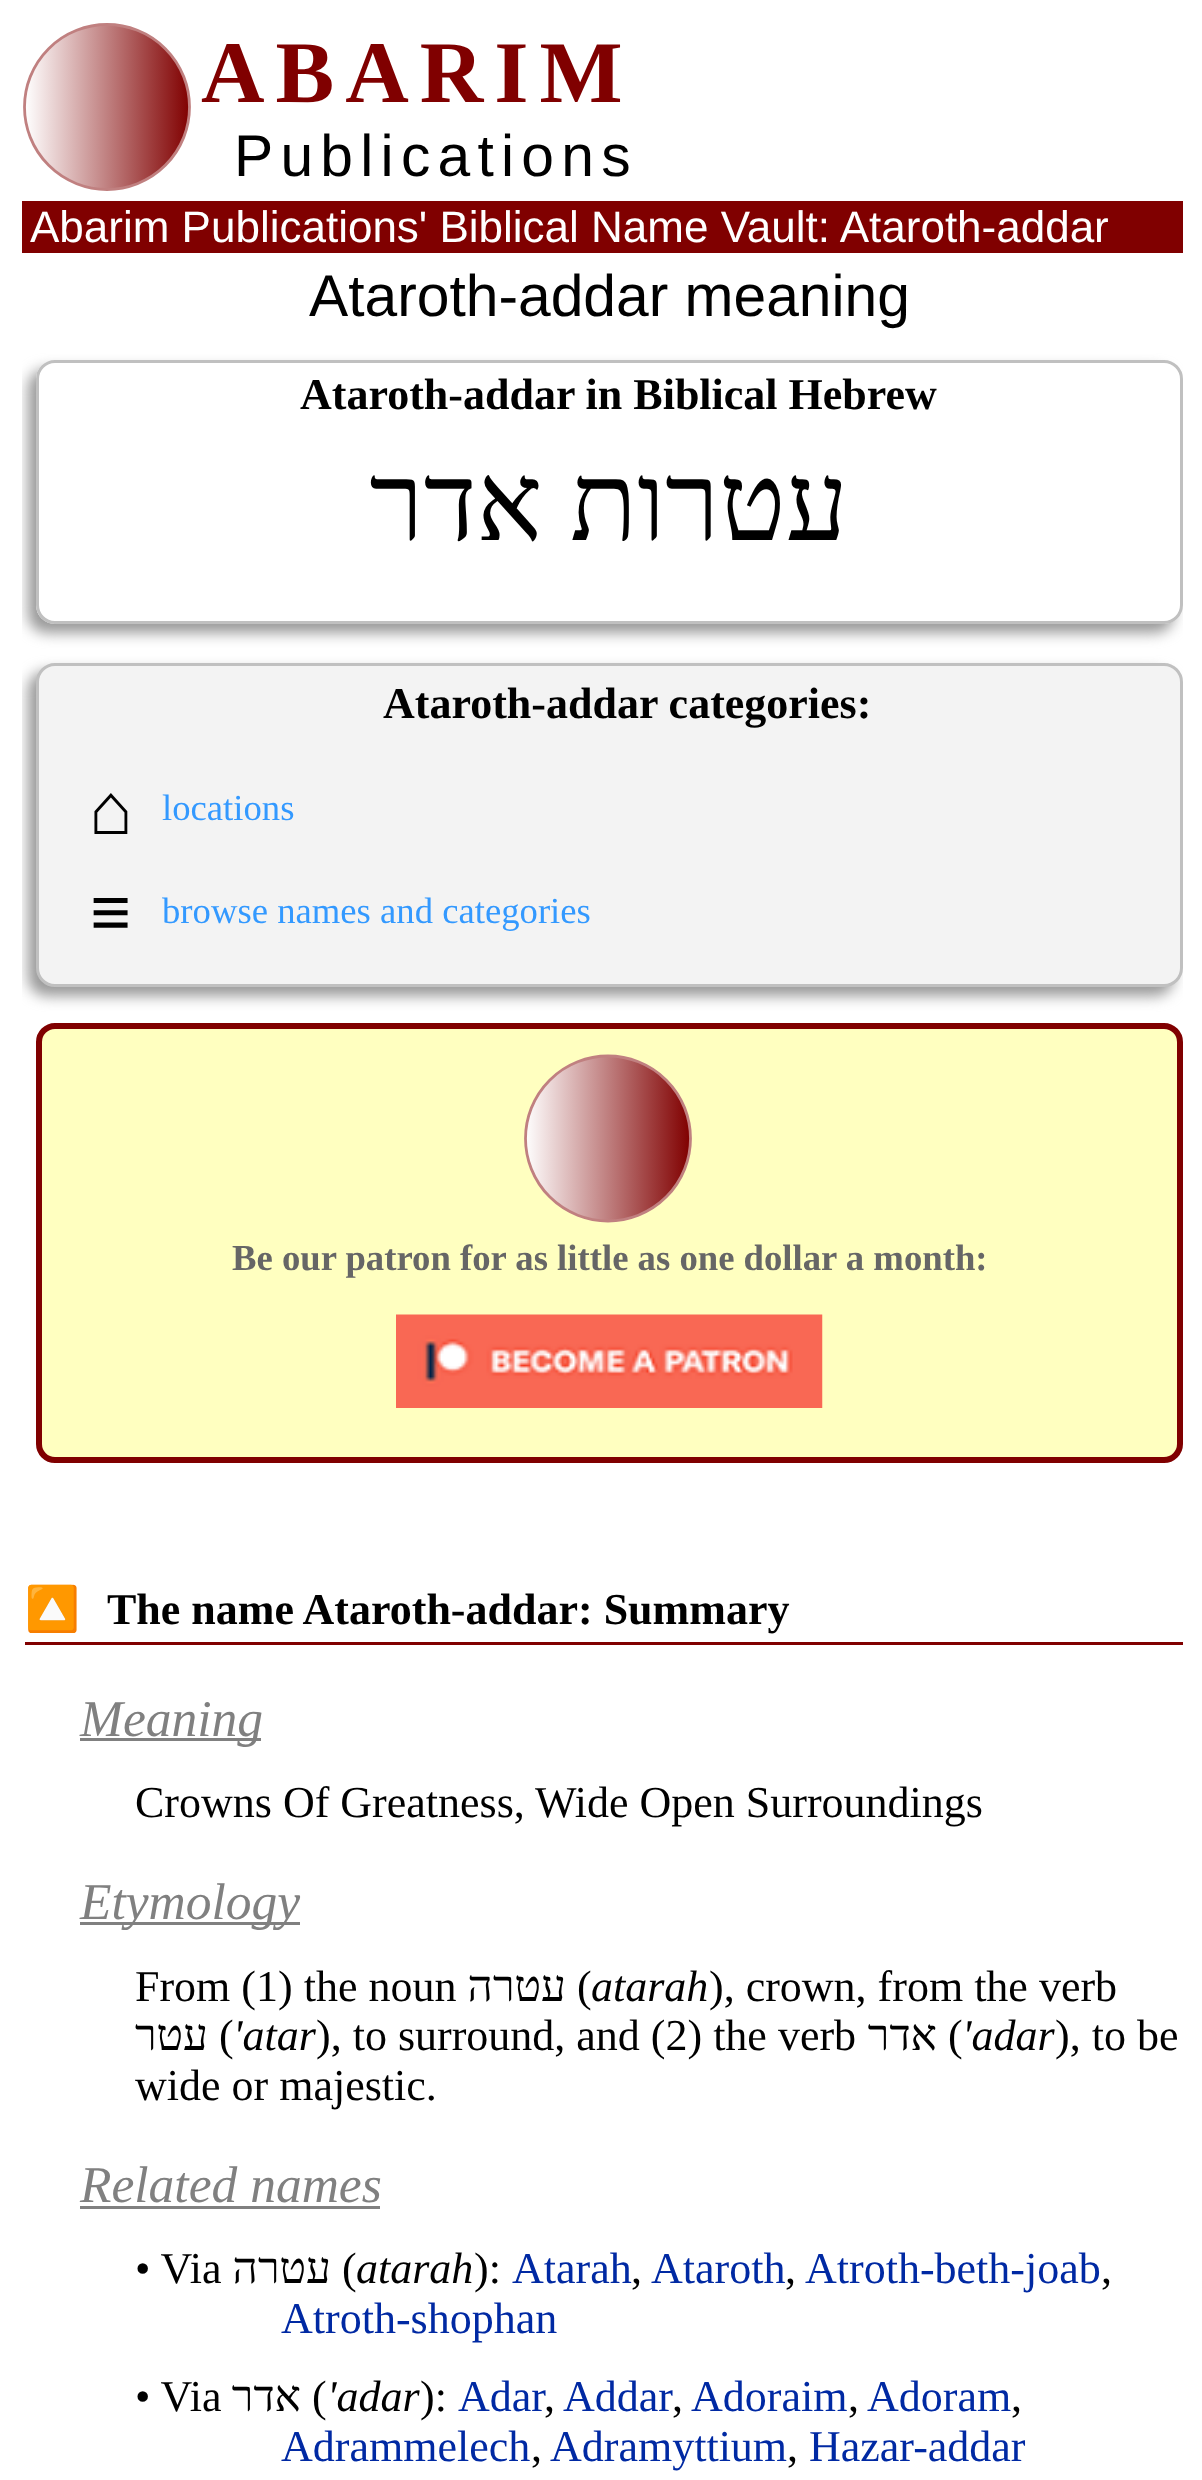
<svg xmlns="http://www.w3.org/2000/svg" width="1202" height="2480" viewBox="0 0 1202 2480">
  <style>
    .t1 { font: bold 88px Liberation Serif; letter-spacing: 11px; fill: #800000; }
    .t2 { font: 58.75px Liberation Sans; letter-spacing: 7.25px; fill: #000; }
    .t3 { font: 44px Liberation Sans; fill: #fff; }
    .t4 { font: 58.75px Liberation Sans; fill: #000; }
    .t5 { font: bold 44px Liberation Serif; fill: #000; }
    .t6 { font: 110px Liberation Serif; direction: rtl; fill: #000; }
    .t7 { font: bold 73px Liberation Serif; fill: #000; }
    .t8 { font: 36.7px Liberation Serif; fill: #39f; }
    .t9 { font: bold 36.7px Liberation Serif; fill: #666; }
    .t10 { font: bold 44px Noto Color Emoji; fill: #000; }
    .t11 { font: italic 51.5px Liberation Serif; fill: #808080; }
    .t12 { font: 44px Liberation Serif; fill: #000; }
    .t13 { font: 44px Liberation Serif; direction: rtl; fill: #000; }
    .t14 { font: italic 44px Liberation Serif; fill: #000; }
    .t15 { font: 44px Liberation Serif; fill: #0029a3; }
  </style>
  <defs>
    <linearGradient id="g1" gradientUnits="userSpaceOnUse" x1="25" y1="25" x2="190" y2="25"><stop offset="0" stop-color="#fff"/><stop offset="1" stop-color="#800000"/></linearGradient>
    <clipPath id="clip1"><rect x="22" y="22" width="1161" height="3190"/></clipPath>
    <clipPath id="clip2"><path d="M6 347H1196V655H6ZM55 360H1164C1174.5 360 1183 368.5 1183 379V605C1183 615.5 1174.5 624 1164 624H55C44.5 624 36 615.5 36 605V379C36 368.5 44.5 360 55 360Z" clip-rule="evenodd"/></clipPath>
    <linearGradient id="g2" gradientUnits="userSpaceOnUse" x1="525" y1="1056" x2="690" y2="1056"><stop offset="0" stop-color="#fff"/><stop offset="1" stop-color="#800000"/></linearGradient>
  </defs>
  <rect width="100%" height="100%" fill="#fff"/>
  <circle cx="107" cy="107" r="82.5" fill="url(#g1)" stroke="#c08080" stroke-width="2.8"/>
  <text x="201" y="102" class="t1">ABARIM</text>
  <text x="234" y="176" class="t2">Publications</text>
  <rect x="22" y="201" width="1161" height="52" fill="#800000"/>
  <text x="30" y="242" class="t3">Abarim Publications' Biblical Name Vault: Ataroth-addar</text>
  <text x="309" y="316" class="t4">Ataroth-addar meaning</text>
  <g clip-path="url(#clip1)">
    <g clip-path="url(#clip2)">
      <rect x="28" y="369" width="1146" height="264" rx="19" fill="#999" filter="blur(7px)"/>
    </g>
  </g>
  <rect x="37.5" y="361.5" width="1144" height="261" rx="17.5" fill="none" stroke="#c0c0c0" stroke-width="3"/>
  <text x="300" y="409" class="t5">Ataroth-addar in Biblical Hebrew</text>
  <text x="848" y="540" class="t6">עטרות אדר</text>
  <g clip-path="url(#clip1)">
    <rect x="28" y="671" width="1146" height="325" rx="19" fill="#999" filter="blur(7px)"/>
  </g>
  <rect x="37.5" y="664.5" width="1144" height="321" rx="17.5" fill="#f3f3f3" stroke="#c0c0c0" stroke-width="3"/>
  <text x="383" y="718" class="t5">Ataroth-addar categories:</text>
  <text x="89" y="834" class="t7">⌂</text>
  <text x="162" y="820" class="t8">locations</text>
  <text x="90" y="937" class="t7">≡</text>
  <text x="162" y="923" class="t8">browse names and categories</text>
  <rect x="39" y="1026" width="1141" height="434" rx="16" fill="#ffffc0" stroke="#800000" stroke-width="6"/>
  <circle cx="608" cy="1138.5" r="82.5" fill="url(#g2)" stroke="#c08080" stroke-width="2.8"/>
  <text x="232" y="1270" class="t9">Be our patron for as little as one dollar a month:</text>
  <image x="396" y="1314" width="427" height="94" href="images/1.png"/>
  <text x="25" y="1624" class="t10">🔼</text>
  <text x="107" y="1624" class="t5">The name Ataroth-addar: Summary</text>
  <rect x="25" y="1642" width="1158" height="3" fill="#800000"/>
  <rect x="80" y="1738" width="181" height="3" fill="#808080"/>
  <text x="80" y="1736" class="t11">Meaning</text>
  <text x="135" y="1817" class="t12">Crowns Of Greatness, Wide Open Surroundings</text>
  <rect x="80" y="1922" width="220" height="3" fill="#808080"/>
  <text x="80" y="1919" class="t11">Etymology</text>
  <text x="135" y="2001" class="t12">From (1) the noun</text>
  <text x="566" y="2001" class="t13">עטרה</text>
  <text x="577" y="2001" class="t12">(</text>
  <text x="591" y="2001" class="t14">atarah</text>
  <text x="709" y="2001" class="t12">), crown, from the verb</text>
  <text x="208" y="2050" class="t13">עטר</text>
  <text x="219" y="2050" class="t12">(</text>
  <text x="233" y="2050" class="t14">'atar</text>
  <text x="316" y="2050" class="t12">), to surround, and (2) the verb</text>
  <text x="937" y="2050" class="t13">אדר</text>
  <text x="948" y="2050" class="t12">(</text>
  <text x="962" y="2050" class="t14">'adar</text>
  <text x="1055" y="2050" class="t12">), to be</text>
  <text x="135" y="2100" class="t12">wide or majestic.</text>
  <text x="80" y="2202" class="t11">Related names</text>
  <rect x="80" y="2206" width="300" height="3" fill="#808080"/>
  <text x="135" y="2283" class="t12">• Via</text>
  <text x="331" y="2283" class="t13">עטרה</text>
  <text x="342" y="2283" class="t12">(</text>
  <text x="356" y="2283" class="t14">atarah</text>
  <text x="474" y="2283" class="t12">):</text>
  <text x="512" y="2283" class="t15">Atarah</text>
  <text x="631" y="2283" class="t12">,</text>
  <text x="651" y="2283" class="t15">Ataroth</text>
  <text x="785" y="2283" class="t12">,</text>
  <text x="805" y="2283" class="t15">Atroth-beth-joab</text>
  <text x="1101" y="2283" class="t12">,</text>
  <text x="281" y="2333" class="t15">Atroth-shophan</text>
  <text x="135" y="2411" class="t12">• Via</text>
  <text x="301" y="2411" class="t13">אדר</text>
  <text x="312" y="2411" class="t12">(</text>
  <text x="327" y="2411" class="t14">'adar</text>
  <text x="420" y="2411" class="t12">):</text>
  <text x="458" y="2411" class="t15">Adar</text>
  <text x="544" y="2411" class="t12">,</text>
  <text x="563" y="2411" class="t15">Addar</text>
  <text x="672" y="2411" class="t12">,</text>
  <text x="691" y="2411" class="t15">Adoraim</text>
  <text x="848" y="2411" class="t12">,</text>
  <text x="867" y="2411" class="t15">Adoram</text>
  <text x="1011" y="2411" class="t12">,</text>
  <text x="281" y="2461" class="t15">Adrammelech</text>
  <text x="531" y="2461" class="t12">,</text>
  <text x="550" y="2461" class="t15">Adramyttium</text>
  <text x="787" y="2461" class="t12">,</text>
  <text x="809" y="2461" class="t15">Hazar-addar</text>
</svg>
